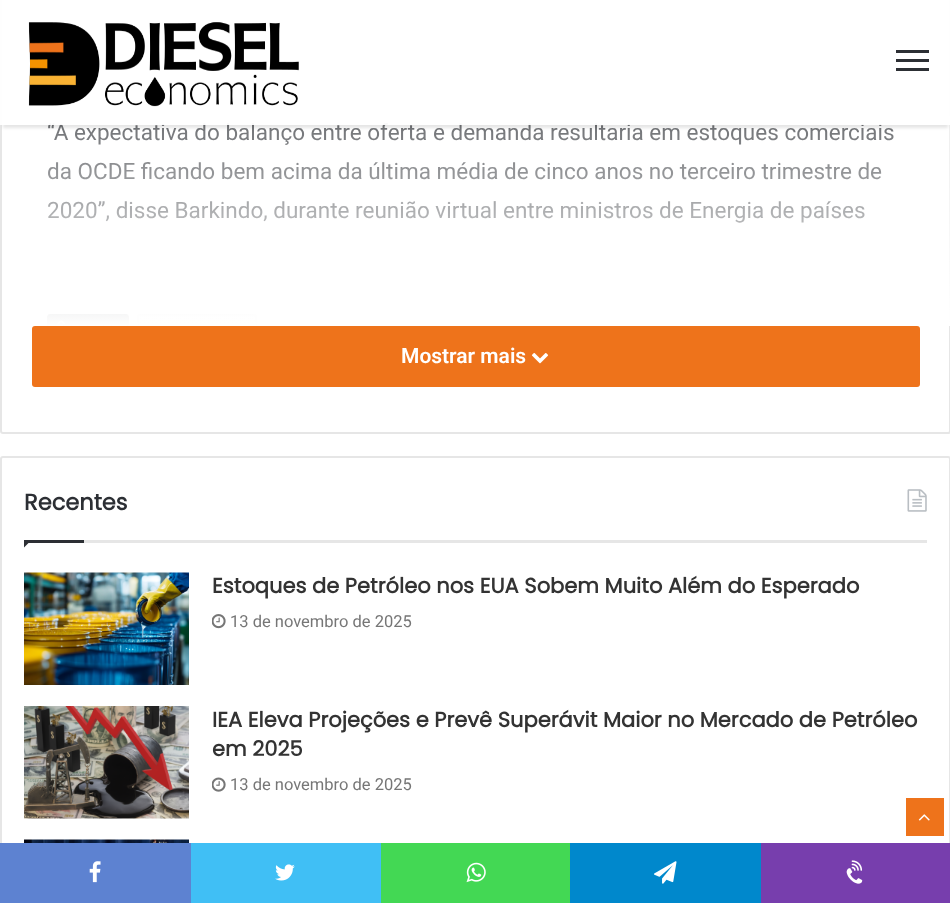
<svg xmlns="http://www.w3.org/2000/svg" width="950" height="903" viewBox="0 0 950 903">
  <style>
    .t1 { font: 22.5px Roboto; fill: #2c2f34; }
    .t2 { font: 600 21px Roboto; fill: #fff; }
    .t3 { font: bold 22.5px Poppins; fill: #2c2f34; }
    .t4 { font: bold 21px Poppins; fill: #333; }
    .t5 { font: 16.5px Roboto; fill: #767676; }
  </style>
  <defs>
    <linearGradient id="g1" gradientUnits="userSpaceOnUse" x1="476" y1="-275" x2="476" y2="326"><stop offset="0.5" stop-color="#fff" stop-opacity="0"/><stop offset="1" stop-color="#fff"/></linearGradient>
    <clipPath id="clip1"><path d="M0 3H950V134H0ZM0 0H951V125H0Z" clip-rule="evenodd"/></clipPath>
  </defs>
  <rect width="100%" height="100%" fill="#fff"/>
  <rect x="1" y="-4" width="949" height="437" rx="2" fill="none" stroke="#e6e6e6" stroke-width="2"/>
  <text x="47" y="140" class="t1">“A expectativa do balanço entre oferta e demanda resultaria em estoques comerciais</text>
  <text x="47" y="179" class="t1">da OCDE ficando bem acima da última média de cinco anos no terceiro trimestre de</text>
  <text x="47" y="218" class="t1">2020”, disse Barkindo, durante reunião virtual entre ministros de Energia de países</text>
  <path d="M50 314H126C127.5 314 129 315.5 129 317V326H47V317C47 315.5 48.5 314 50 314Z" fill="#2c2f34"/>
  <rect x="48" y="315" width="80" height="31" rx="2" fill="none" stroke="#0000001a" stroke-width="2"/>
  <image x="57" y="320" width="9" height="4" href="images/2.png"/>
  <path d="M140 314H254C255.5 314 257 315.5 257 317V326H137V317C137 315.5 138.5 314 140 314Z" fill="#f7f7f7"/>
  <rect x="138" y="315" width="118" height="31" rx="2" fill="none" stroke="#0000001a" stroke-width="2"/>
  <rect x="47" y="57" width="903" height="269" fill="url(#g1)"/>
  <g clip-path="url(#clip1)">
    <rect x="3" y="9" width="945" height="119" fill="#0000001a" filter="blur(1.5px)"/>
  </g>
  <rect x="0" y="0" width="950" height="125" fill="#fffffff2"/>
  <image x="28" y="22" width="271" height="85" href="images/1.png"/>
  <rect x="896" y="59" width="33" height="3" fill="#2c2f34"/>
  <rect x="896" y="50" width="33" height="3" fill="#2c2f34"/>
  <rect x="896" y="68" width="33" height="3" fill="#2c2f34"/>
  <rect x="32" y="326" width="888" height="61" rx="3" fill="#ee731b"/>
  <text x="401" y="363" class="t2">Mostrar mais</text>
  <image x="531" y="353" width="18" height="11" href="images/3.png"/>
  <rect x="1" y="457" width="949" height="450" rx="2" fill="none" stroke="#e6e6e6" stroke-width="2"/>
  <rect x="84" y="540" width="843" height="3" fill="#e6e6e6"/>
  <text x="24" y="510" class="t3">Recentes</text>
  <image x="907" y="489" width="20" height="23" href="images/4.png"/>
  <path d="M24 540H31.5L24 547.5Z" fill="#2c2f34"/>
  <rect x="24" y="540" width="60" height="3" fill="#2c2f34"/>
  <image x="24" y="572" width="165" height="113" href="images/5.png"/>
  <text x="212" y="593" class="t4">Estoques de Petróleo nos EUA Sobem Muito Além do Esperado</text>
  <image x="212" y="614" width="14" height="15" href="images/6.png"/>
  <text x="230" y="627" class="t5">13 de novembro de 2025</text>
  <image x="24" y="706" width="165" height="113" href="images/7.png"/>
  <text x="212" y="727" class="t4">IEA Eleva Projeções e Prevê Superávit Maior no Mercado de Petróleo</text>
  <text x="212" y="756" class="t4">em 2025</text>
  <image x="212" y="777" width="14" height="15" href="images/8.png"/>
  <text x="230" y="790" class="t5">13 de novembro de 2025</text>
  <image x="24" y="839" width="165" height="4" href="images/9.png"/>
  <rect x="906" y="798" width="38" height="38" fill="#ee731b"/>
  <image x="918" y="814" width="12" height="7" href="images/10.png"/>
  <rect x="0" y="843" width="191" height="60" fill="#5d82d1"/>
  <image x="89" y="861" width="12" height="22" href="images/11.png"/>
  <rect x="191" y="843" width="190" height="60" fill="#40bff5"/>
  <image x="275" y="864" width="20" height="17" href="images/12.png"/>
  <rect x="381" y="843" width="189" height="60" fill="#43d854"/>
  <image x="466" y="862" width="20" height="21" href="images/13.png"/>
  <rect x="570" y="843" width="191" height="60" fill="#08c"/>
  <image x="654" y="861" width="23" height="23" href="images/14.png"/>
  <rect x="761" y="843" width="189" height="60" fill="#773ead"/>
  <image x="846" y="860" width="17" height="24" href="images/15.png"/>
</svg>
